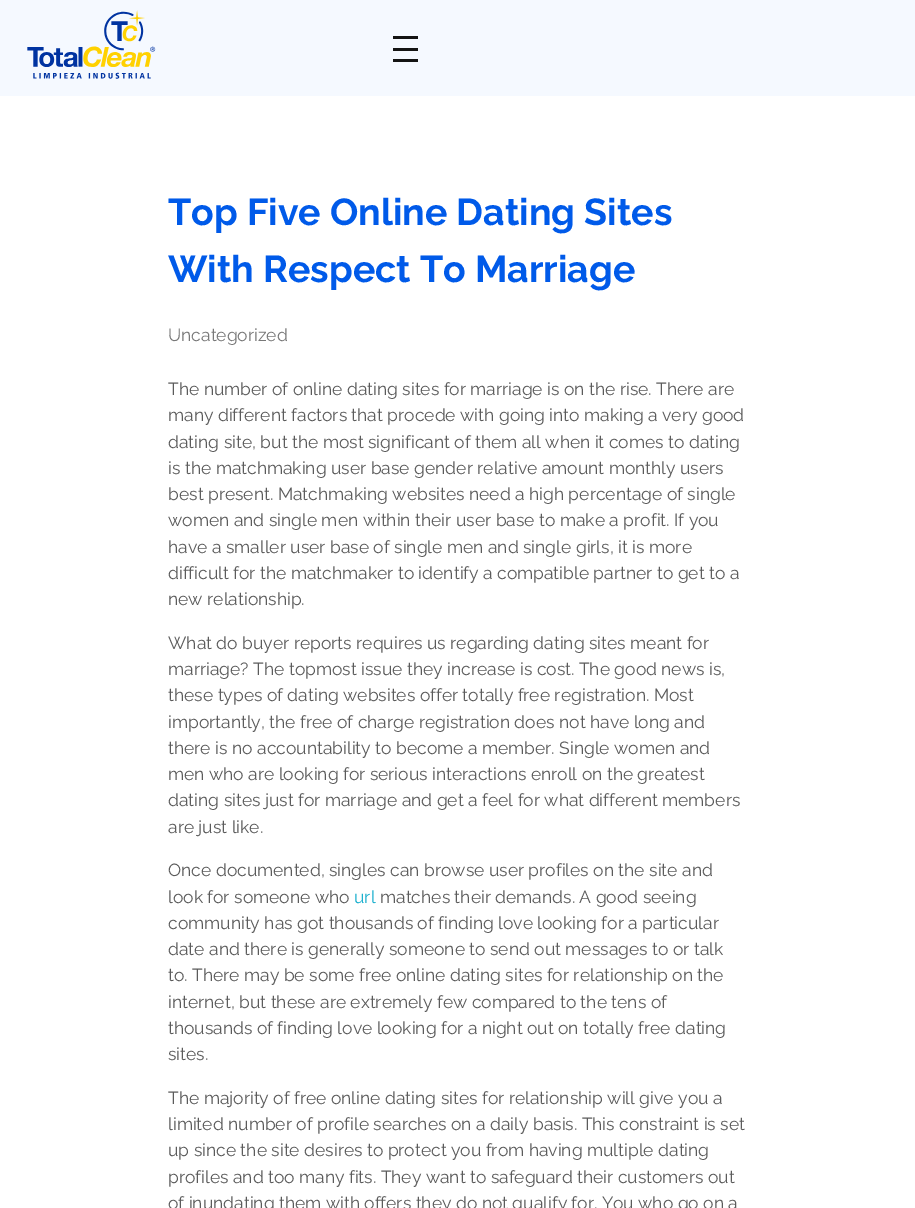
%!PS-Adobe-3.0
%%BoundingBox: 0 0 915 1208
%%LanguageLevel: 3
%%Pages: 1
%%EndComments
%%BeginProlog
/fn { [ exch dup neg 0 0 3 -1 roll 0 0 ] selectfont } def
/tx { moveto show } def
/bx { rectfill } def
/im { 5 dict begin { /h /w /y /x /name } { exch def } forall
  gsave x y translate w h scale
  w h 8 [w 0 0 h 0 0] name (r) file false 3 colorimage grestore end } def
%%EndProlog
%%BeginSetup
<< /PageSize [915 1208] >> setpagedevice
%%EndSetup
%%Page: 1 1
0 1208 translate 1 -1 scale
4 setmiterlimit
1 setgray
0 0 915 1208 bx
0.961 0.976 1 setrgbcolor
0 0 915 96 bx
(image0.raw) 27 10 129 69 im
0.078 setgray
393 36 25 3 bx
393 48 25 3 bx
393 59 25 3 bx
/Raleway-Bold 37.5 fn
0 0.353 0.914 setrgbcolor
(Top Five Online Dating Sites) 168 225 tx
(With Respect To Marriage) 168 282 tx
/Raleway-Regular 17.5 fn
0.471 setgray
(Uncategorized) 168 341 tx
0.357 setgray
(The number of online dating sites for marriage is on the rise. There are) 168 395 tx
(many different factors that procede with going into making a very good) 168 421 tx
(dating site, but the most significant of them all when it comes to dating) 168 448 tx
(is the matchmaking user base gender relative amount monthly users) 168 474 tx
(best present. Matchmaking websites need a high percentage of single) 168 500 tx
(women and single men within their user base to make a profit. If you) 168 526 tx
(have a smaller user base of single men and single girls, it is more) 168 553 tx
(difficult for the matchmaker to identify a compatible partner to get to a) 168 579 tx
(new relationship.) 168 605 tx
(What do buyer reports requires us regarding dating sites meant for) 168 649 tx
(marriage? The topmost issue they increase is cost. The good news is,) 168 675 tx
(these types of dating websites offer totally free registration. Most) 168 701 tx
(importantly, the free of charge registration does not have long and) 168 728 tx
(there is no accountability to become a member. Single women and) 168 754 tx
(men who are looking for serious interactions enroll on the greatest) 168 780 tx
(dating sites just for marriage and get a feel for what different members) 168 806 tx
(are just like.) 168 833 tx
(Once documented, singles can browse user profiles on the site and) 168 876 tx
(look for someone who) 168 903 tx
0.106 0.69 0.808 setrgbcolor
(url) 354 903 tx
0.357 setgray
(matches their demands. A good seeing) 380 903 tx
(community has got thousands of finding love looking for a particular) 168 929 tx
(date and there is generally someone to send out messages to or talk) 168 955 tx
(to. There may be some free online dating sites for relationship on the) 168 981 tx
(internet, but these are extremely few compared to the tens of) 168 1008 tx
(thousands of finding love looking for a night out on totally free dating) 168 1034 tx
(sites.) 168 1060 tx
(The majority of free online dating sites for relationship will give you a) 168 1104 tx
(limited number of profile searches on a daily basis. This constraint is set) 168 1130 tx
(up since the site desires to protect you from having multiple dating) 168 1156 tx
(profiles and too many fits. They want to safeguard their customers out) 168 1183 tx
(of inundating them with offers they do not qualify for. You who go on a) 168 1209 tx
showpage
%%EOF
